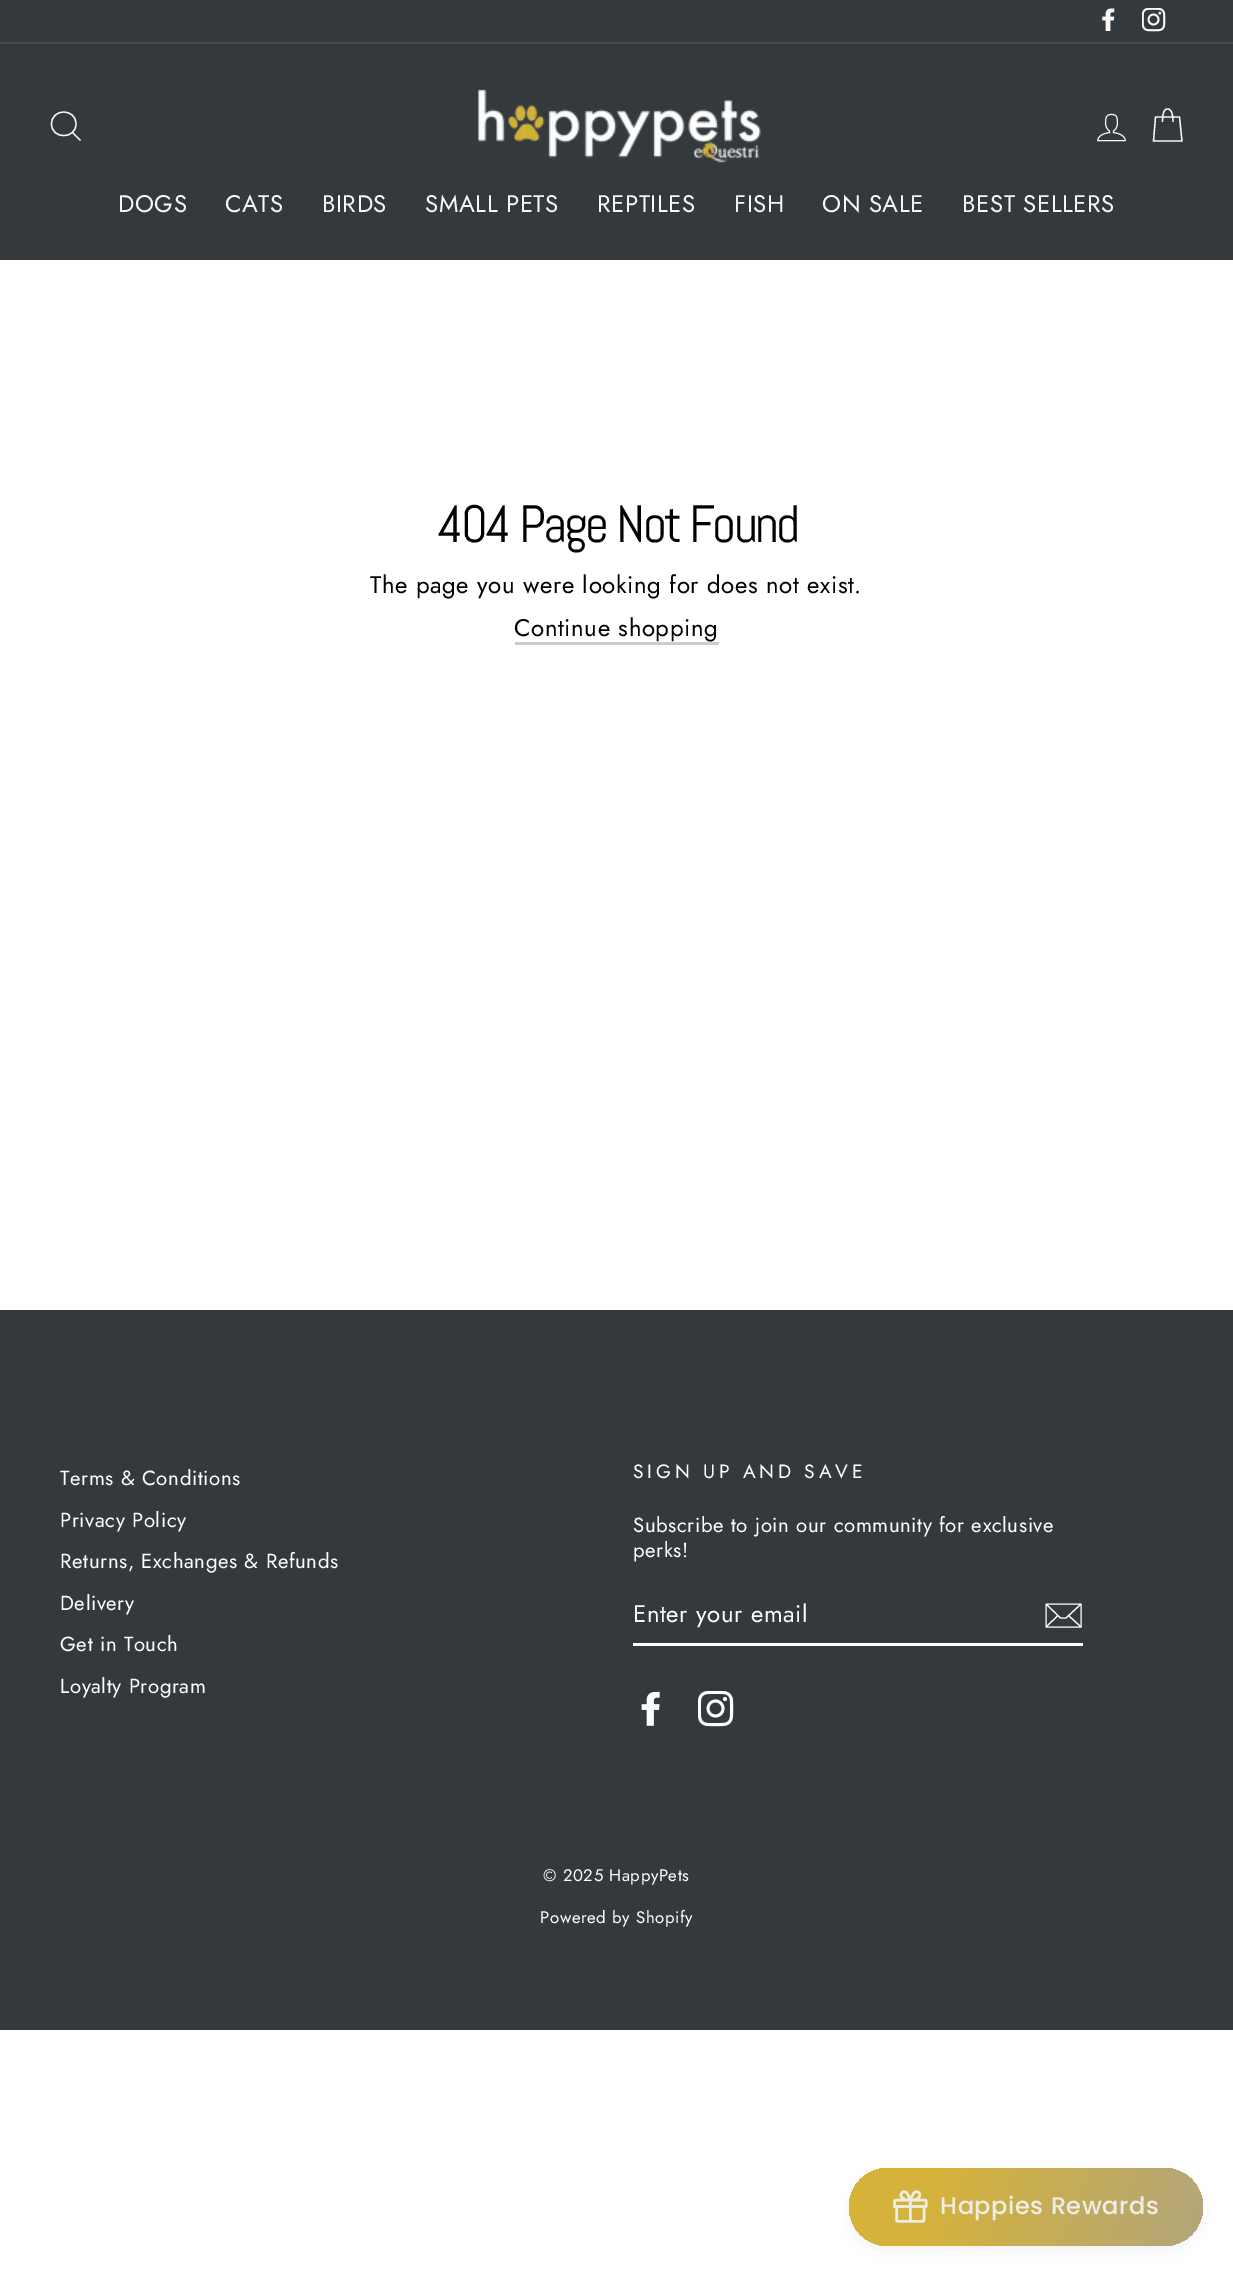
%!PS-Adobe-3.0
%%BoundingBox: 0 0 1233 2275
%%LanguageLevel: 3
%%Pages: 1
%%EndComments
%%BeginProlog
/m { moveto } bind def
/l { lineto } bind def
/c { curveto } bind def
/h { closepath } bind def
/S { stroke } bind def
/q { gsave } bind def
/Q { grestore } bind def
/w { setlinewidth } bind def
/fn { [ exch dup neg 0 0 3 -1 roll 0 0 ] selectfont } def
/bx { rectfill } def
/al { dup .setfillconstantalpha .setstrokeconstantalpha } def
/rr { 5 dict begin { /r /h /w /y /x } { exch def } forall
  x r add y moveto x w add y 2 copy h add r arct x w add y h add x 1 index r arct
  x y h add x y r arct x y 2 copy exch w add exch r arct closepath end } def
/sh { 12 dict begin { /a /b /q /h /w /y /x } { exch def } forall gsave /was 0 def
  9 -2 -9 { dup b mul 4 div /e exch def 1 sub .425 mul 2.718 exch exp 1 add a .99 .min exch div /now exch def
    1 1 now sub 1 was sub div sub al /was now def
    w h .min e 2 mul add 0 gt { x e sub y e sub w e 2 mul add h e 2 mul add
      q e add b .6 mul add w h .min 2 div e add .min 0 .max rr fill } if } for grestore end } def
/im { 5 dict begin { /h /w /y /x /name } { exch def } forall
  gsave x y translate w h scale
  w h 8 [w 0 0 h 0 0] name (r) file false 3 colorimage grestore end } def
%%EndProlog
%%BeginSetup
<< /PageSize [1233 2275] /PageUsesTransparency true >> setpagedevice
%%EndSetup
%%Page: 1 1
0 .pushpdf14devicefilter
0 2275 translate 1 -1 scale
4 setmiterlimit
1 setgray
0 0 1233 2275 bx
0.204 0.224 0.243 setrgbcolor
0 0 1233 42 bx
(image0.raw) 1102 8 13 23 im
(image1.raw) 1142 8 24 24 im
0 44 1233 216 bx
0.282 0.298 0.318 setrgbcolor
0 42 1233 2 bx
0.98 0.969 0.969 setrgbcolor
1.3 w
76 124 m 76 139.5 51.5 139.5 51.5 124 c 51.5 108 76 108 76 124 c h 80.5 140.5 m 72.5 132.5 l S
(image2.raw) 477 89 284 74 im
(image3.raw) 1097 113 29 29 im
1162.5 122 m 1162.5 111.5 1164.5 109 1167.5 109 c 1170.5 109 1173 111.5 1173 122 c 1155.5 117 m 1179.5 117 l 1182 141 l 1153.5 141 l h S
/Jost-Regular 24 fn
118 212 m 0.6 0 (DOGS) ashow
225 212 m 0.6 0 (CATS) ashow
322 212 m 0.6 0 (BIRDS) ashow
425 212 m 0.6 0 (SMALL PETS) ashow
597 212 m 0.6 0 (REPTILES) ashow
734 212 m 0.6 0 (FISH) ashow
822 212 m 0.6 0 (ON SALE) ashow
962 212 m 0.6 0 (BEST SELLERS) ashow
/Abel-Regular 52.5 fn
0 setgray
437 542 m -2.6 0 (404 Page Not Found) ashow
/Jost-Regular 24 fn
370 593 m 0.6 0 (The page you were looking for does not exist.) ashow
0.8 setgray
515 642 204 3 bx
0 setgray
514 636 m 0.6 0 (Continue shopping) ashow
0.204 0.224 0.243 setrgbcolor
0 1310 1233 720 bx
/Jost-Regular 20.4 fn
1 setgray
60 1485 m 0.6 0 (Terms & Conditions) ashow
60 1527 m 0.6 0 (Privacy Policy) ashow
60 1568 m 0.6 0 (Returns, Exchanges & Refunds) ashow
60 1610 m 0.6 0 (Delivery) ashow
60 1651 m 0.6 0 (Get in Touch) ashow
60 1693 m 0.6 0 (Loyalty Program) ashow
/Jost-Regular 19.25 fn
633 1478 m 3.8 0 (SIGN UP AND SAVE) ashow
/Jost-Regular 20.4 fn
633 1532 m 0.6 0 (Subscribe to join our community for exclusive) ashow
633 1557 m 0.6 0 (perks!) ashow
633 1643 450 3 bx
/Jost-Regular 24 fn
633 1622 m 0.6 0 (Enter your email) ashow
1.1 w
1081 1627 m 1046 1627 l 1046 1604 l 1081 1604 l h 1046 1604 m 1060.5 1618 l 1066 1618 l 1081 1604 l 1058 1615.5 m 1046.5 1626.5 l 1080.5 1626.5 m 1068.5 1615.5 l S
(image4.raw) 641 1691 19 35 im
(image5.raw) 698 1691 36 36 im
/Jost-Regular 16.75 fn
543 1881 m 0.6 0 (© 2025 HappyPets) ashow
540 1923 m 0.6 0 (Powered by Shopify) ashow
0.267 setgray
852 2177 348 72 36 6 0.08 sh
q 849 2168 354 78 39 rr clip newpath
<< /ShadingType 2 /ColorSpace /DeviceRGB /Coords [857 2146 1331 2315] /Extend [true true] /Function << /FunctionType 3 /Domain [0 1] /Functions [<< /FunctionType 2 /Domain [0 1] /C0 [0.835 0.698 0.227] /C1 [0.835 0.698 0.227] /N 1 >> << /FunctionType 2 /Domain [0 1] /C0 [0.835 0.698 0.227] /C1 [0.635 0.624 0.624] /N 1 >>] /Bounds [0.17] /Encode [0 1 0 1] >> >> shfill Q
(image6.raw) 893 2190 35 33 im
/Poppins-Medium 24 fn
0.933 0.929 0.91 setrgbcolor
940 2214 m 0.6 0 (Happies Rewards) ashow
.poppdf14devicefilter showpage
%%EOF
